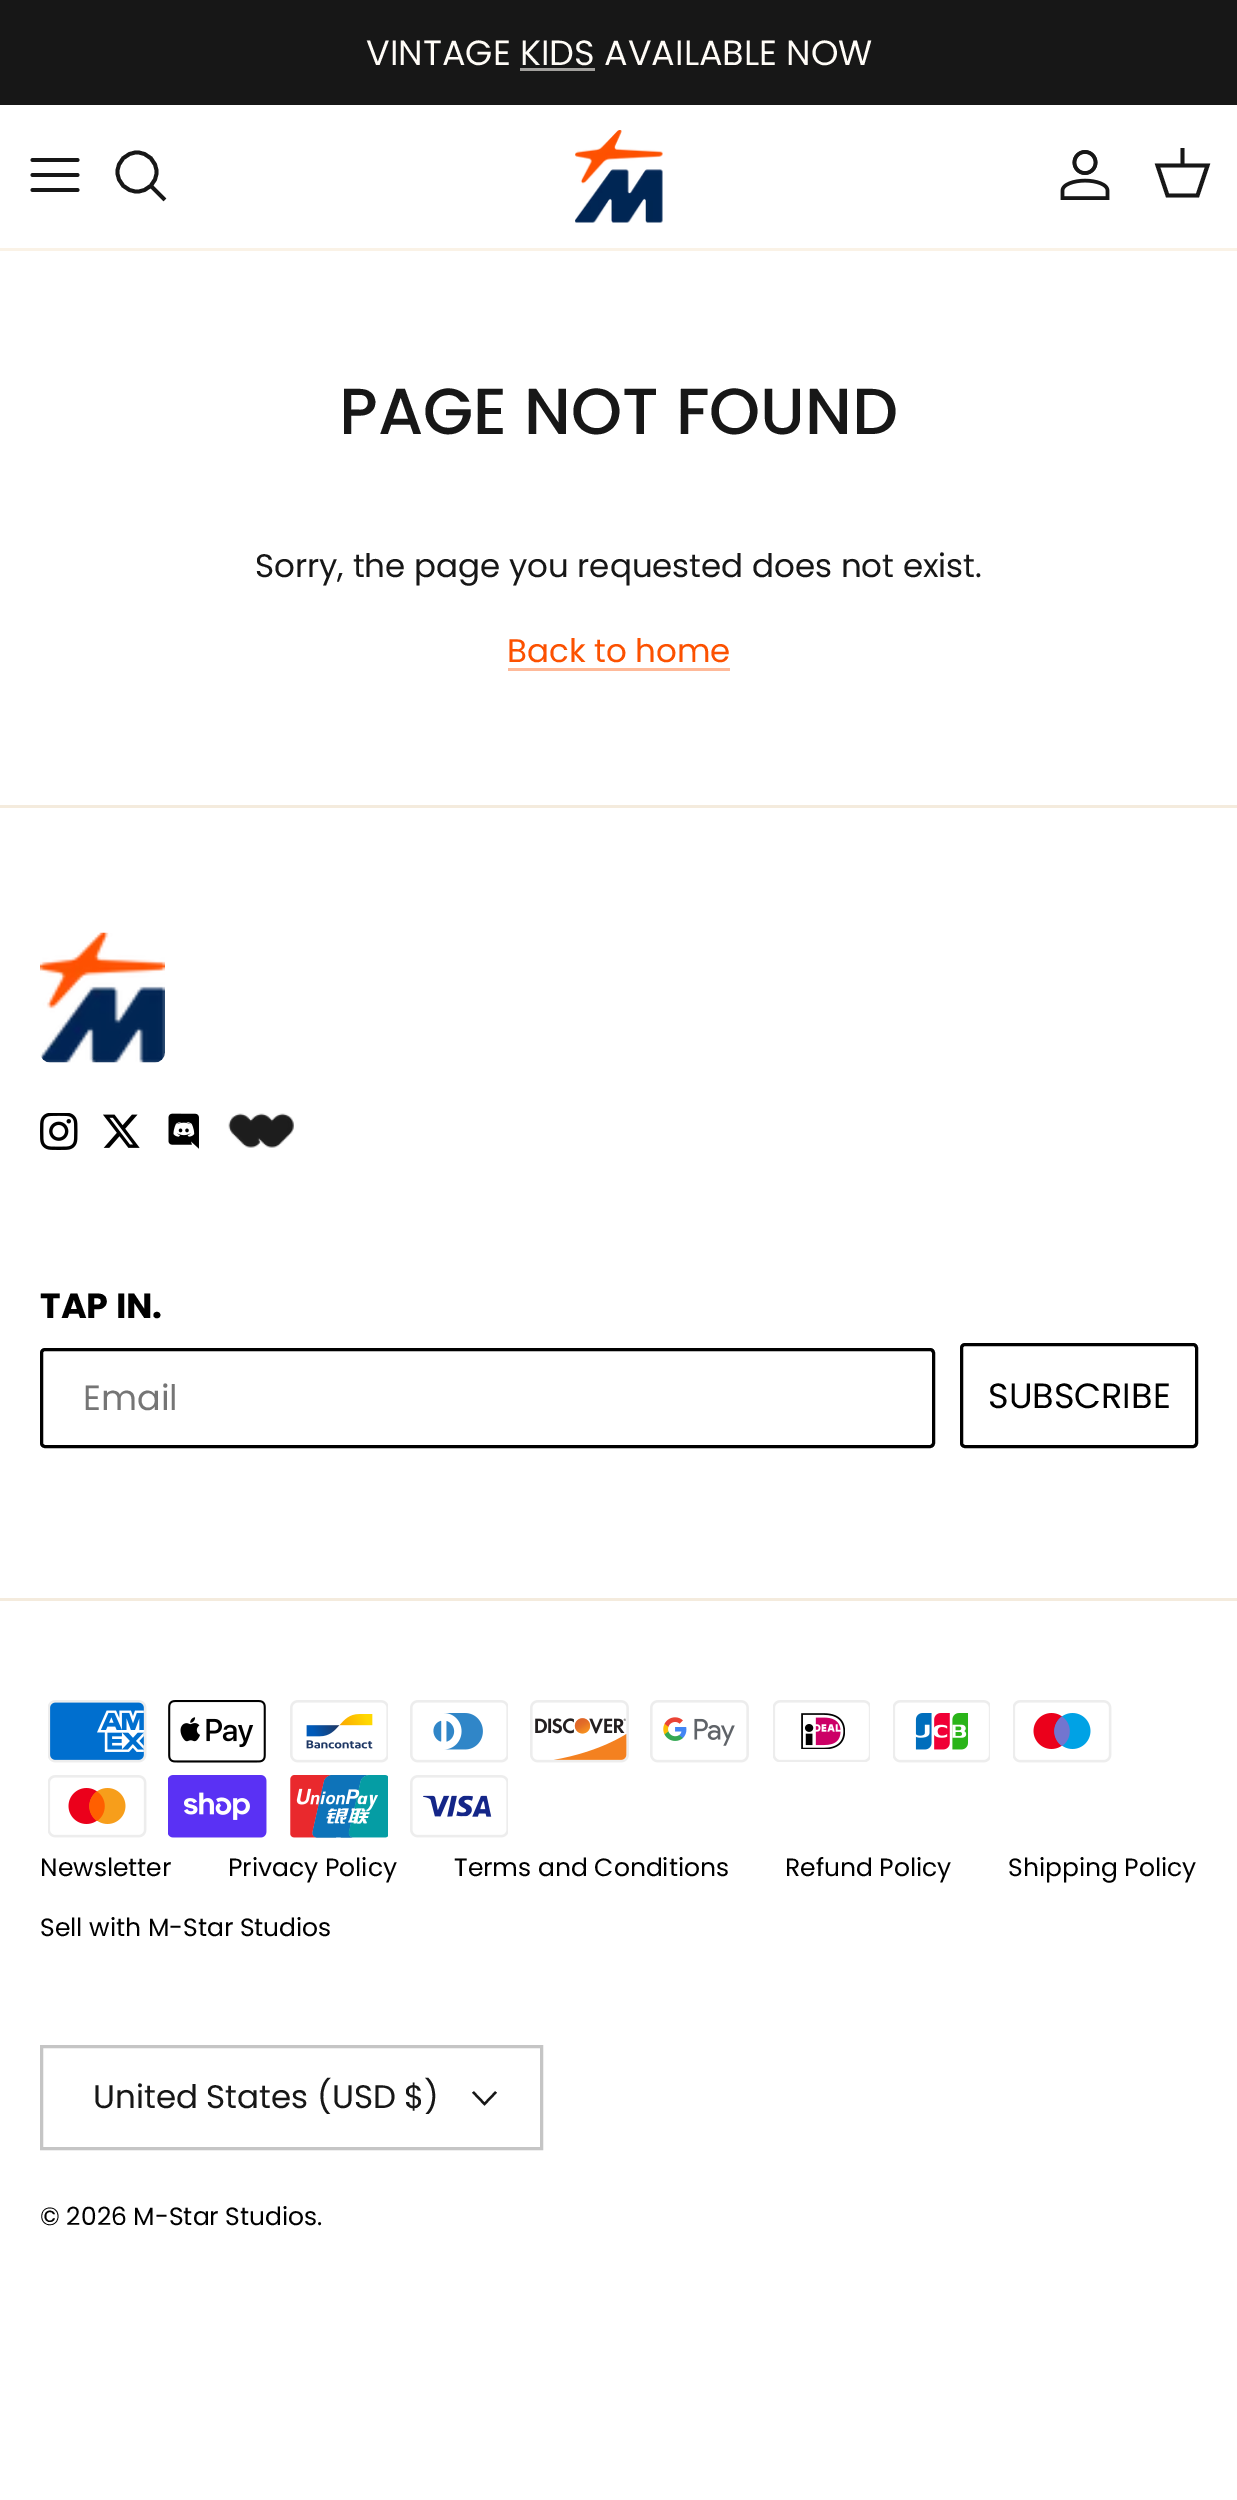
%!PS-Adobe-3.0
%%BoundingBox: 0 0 1237 2500
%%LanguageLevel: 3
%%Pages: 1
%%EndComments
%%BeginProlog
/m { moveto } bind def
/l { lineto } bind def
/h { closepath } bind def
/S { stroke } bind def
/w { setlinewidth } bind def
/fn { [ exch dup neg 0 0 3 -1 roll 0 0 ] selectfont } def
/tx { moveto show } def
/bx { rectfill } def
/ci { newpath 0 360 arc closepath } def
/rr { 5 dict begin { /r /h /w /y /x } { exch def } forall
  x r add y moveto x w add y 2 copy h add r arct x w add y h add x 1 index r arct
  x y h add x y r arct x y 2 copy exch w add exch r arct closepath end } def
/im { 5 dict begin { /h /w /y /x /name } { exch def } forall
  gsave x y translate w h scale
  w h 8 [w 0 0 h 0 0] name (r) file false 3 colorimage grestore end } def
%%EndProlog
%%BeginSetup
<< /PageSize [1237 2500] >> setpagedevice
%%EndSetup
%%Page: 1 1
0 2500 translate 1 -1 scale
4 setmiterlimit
1 setgray
0 0 1237 2500 bx
0.09 setgray
0 0 1237 105 bx
/Poppins-Regular 35 fn
1 0.988 0.969 setrgbcolor
(VINTAGE KIDS AVAILABLE NOW) 366 65 tx
0.635 0.627 0.616 setrgbcolor
520 68 75 3 bx
0.98 0.949 0.902 setrgbcolor
0 248 1237 3 bx
0.09 setgray
3.8 w
1 setlinecap
1 setlinejoin
32.5 175 m 77.5 175 l 32.5 160 m 77.5 160 l 32.5 190 m 77.5 190 l S
0 setlinecap
0 setlinejoin
137 172 19.5 ci S
2 setlinecap
152.5 187.5 m 163.5 198.5 l S
(image0.raw) 575 130 88 93 im
(image1.raw) 1060 150 50 50 im
0 setlinecap
1157.5 165.5 m 1207.5 165.5 l 1197.5 195.5 l 1167.5 195.5 l h S
2 setlinecap
1182.5 165 m 1182.5 150 l S
/Poppins-Medium 65 fn
(PAGE NOT FOUND) 339 434 tx
/Poppins-Regular 32.5 fn
(Sorry, the page you requested does not exist.) 255 577 tx
0.988 0.318 0 setrgbcolor
(Back to home) 507 662 tx
0.996 0.725 0.6 setrgbcolor
508 668 222 3 bx
0.957 0.922 0.867 setrgbcolor
0 805 1237 3 bx
(image2.raw) 40 932 125 131 im
(image3.raw) 40 1113 38 37 im
(image4.raw) 103 1114 37 34 im
(image5.raw) 168 1113 31 36 im
(image6.raw) 228 1113 66 35 im
/Poppins-Bold 35 fn
0 setgray
(TAP IN.) 40 1318 tx
3 w
0 setlinecap
41.5 1349.5 892 97 3.5 rr S
/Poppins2-Regular 35 fn
0.459 setgray
(Email) 83 1410 tx
0 setgray
961.5 1344.5 235 102 3.5 rr S
(SUBSCRIBE) 988 1408 tx
0.957 0.922 0.867 setrgbcolor
0 1598 1237 3 bx
(image7.raw) 48 1700 99 63 im
(image8.raw) 168 1700 98 63 im
(image9.raw) 290 1700 98 63 im
(image10.raw) 410 1700 98 63 im
(image11.raw) 530 1700 99 63 im
(image12.raw) 650 1700 99 63 im
(image13.raw) 773 1700 97 62 im
(image14.raw) 893 1700 97 63 im
(image15.raw) 1013 1700 99 63 im
(image16.raw) 48 1775 99 63 im
(image17.raw) 168 1775 99 63 im
(image18.raw) 290 1775 98 63 im
(image19.raw) 410 1775 98 63 im
/Poppins-Regular 25 fn
0 setgray
(Newsletter) 40 1876 tx
(Privacy Policy) 228 1876 tx
(Terms and Conditions) 454 1876 tx
(Refund Policy) 785 1876 tx
(Shipping Policy) 1008 1876 tx
(Sell with M-Star Studios) 40 1936 tx
0.773 setgray
41.5 2046.5 500 102 rectstroke
/Poppins-Regular 32.5 fn
0.09 setgray
(United States \(USD $\)) 93 2108 tx
2.3 w
496 2092 m 484.5 2104 l 473 2092 l S
/Poppins-Regular 25 fn
0 setgray
(© 2026 M-Star Studios.) 40 2225 tx
showpage
%%EOF
